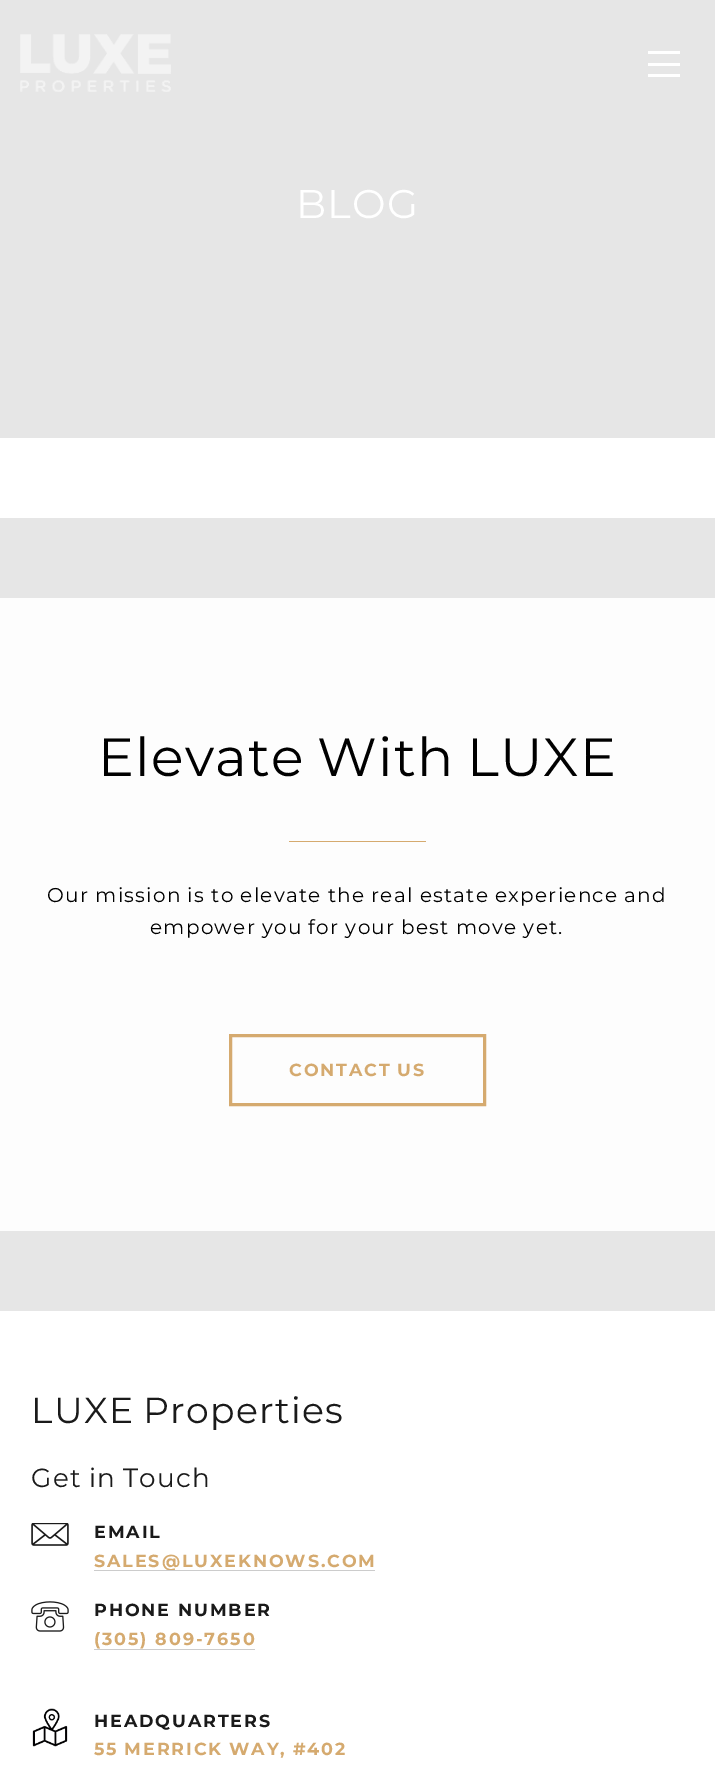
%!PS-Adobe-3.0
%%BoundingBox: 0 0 715 1770
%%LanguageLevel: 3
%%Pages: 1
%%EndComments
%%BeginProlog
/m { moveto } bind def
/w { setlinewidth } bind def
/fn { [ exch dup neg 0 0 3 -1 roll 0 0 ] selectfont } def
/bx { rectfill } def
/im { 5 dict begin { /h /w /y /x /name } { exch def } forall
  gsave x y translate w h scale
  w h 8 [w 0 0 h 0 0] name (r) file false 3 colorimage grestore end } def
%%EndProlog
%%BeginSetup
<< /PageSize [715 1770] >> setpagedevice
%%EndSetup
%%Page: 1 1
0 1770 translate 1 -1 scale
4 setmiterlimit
1 setgray
0 0 715 1770 bx
0.902 setgray
0 0 715 438 bx
(image0.raw) 20 34 151 58 im
1 setgray
648 63 32 3 bx
648 51 32 3 bx
648 74 32 3 bx
/Montserrat-Regular 40 fn
296 218 m 1.25 0 (BLOG) ashow
0.902 setgray
0 518 715 793 bx
0.992 setgray
0 598 715 633 bx
/Montserrat-Regular 53.75 fn
0 setgray
98 776 m -3 0 32 1.25 0 (Elevate With LUXE) awidthshow
0.835 0.667 0.435 setrgbcolor
289 841 137 1 bx
/Montserrat-Regular 20 fn
0 setgray
47 902 m -0.4 0 32 1.25 0 (Our mission is to elevate the real estate experience and) awidthshow
150 934 m -0.5 0 32 1.25 0 (empower you for your best move yet.) awidthshow
0.835 0.667 0.435 setrgbcolor
3 w
230.5 1035.5 254 69 rectstroke
/Montserrat-Bold 17.5 fn
289 1076 m -1 0 32 1.9 0 (CONTACT US) awidthshow
/Montserrat-Regular 36.25 fn
0.102 setgray
31 1423 m -2 0 32 1.25 0 (LUXE Properties) awidthshow
/Montserrat-Regular 26.25 fn
31 1487 m -1 0 32 1.25 0 (Get in Touch) awidthshow
(image1.raw) 31 1523 38 23 im
/Montserrat-Bold 17.5 fn
94 1538 m 1.9 0 (EMAIL) ashow
0.835 0.667 0.435 setrgbcolor
94 1567 m 1.9 0 (SALES@LUXEKNOWS.COM) ashow
0.8 setgray
94 1570 281 1 bx
(image2.raw) 31 1601 38 31 im
0.102 setgray
94 1616 m 1.9 0 (PHONE NUMBER) ashow
0.835 0.667 0.435 setrgbcolor
94 1645 m 1.9 0 (\(305\) 809-7650) ashow
0.8 setgray
94 1649 161 1 bx
(image3.raw) 32 1708 36 39 im
0.102 setgray
94 1727 m 1.9 0 (HEADQUARTERS) ashow
0.835 0.667 0.435 setrgbcolor
94 1755 m -1 0 32 1.9 0 (55 MERRICK WAY, #402) awidthshow
showpage
%%EOF
